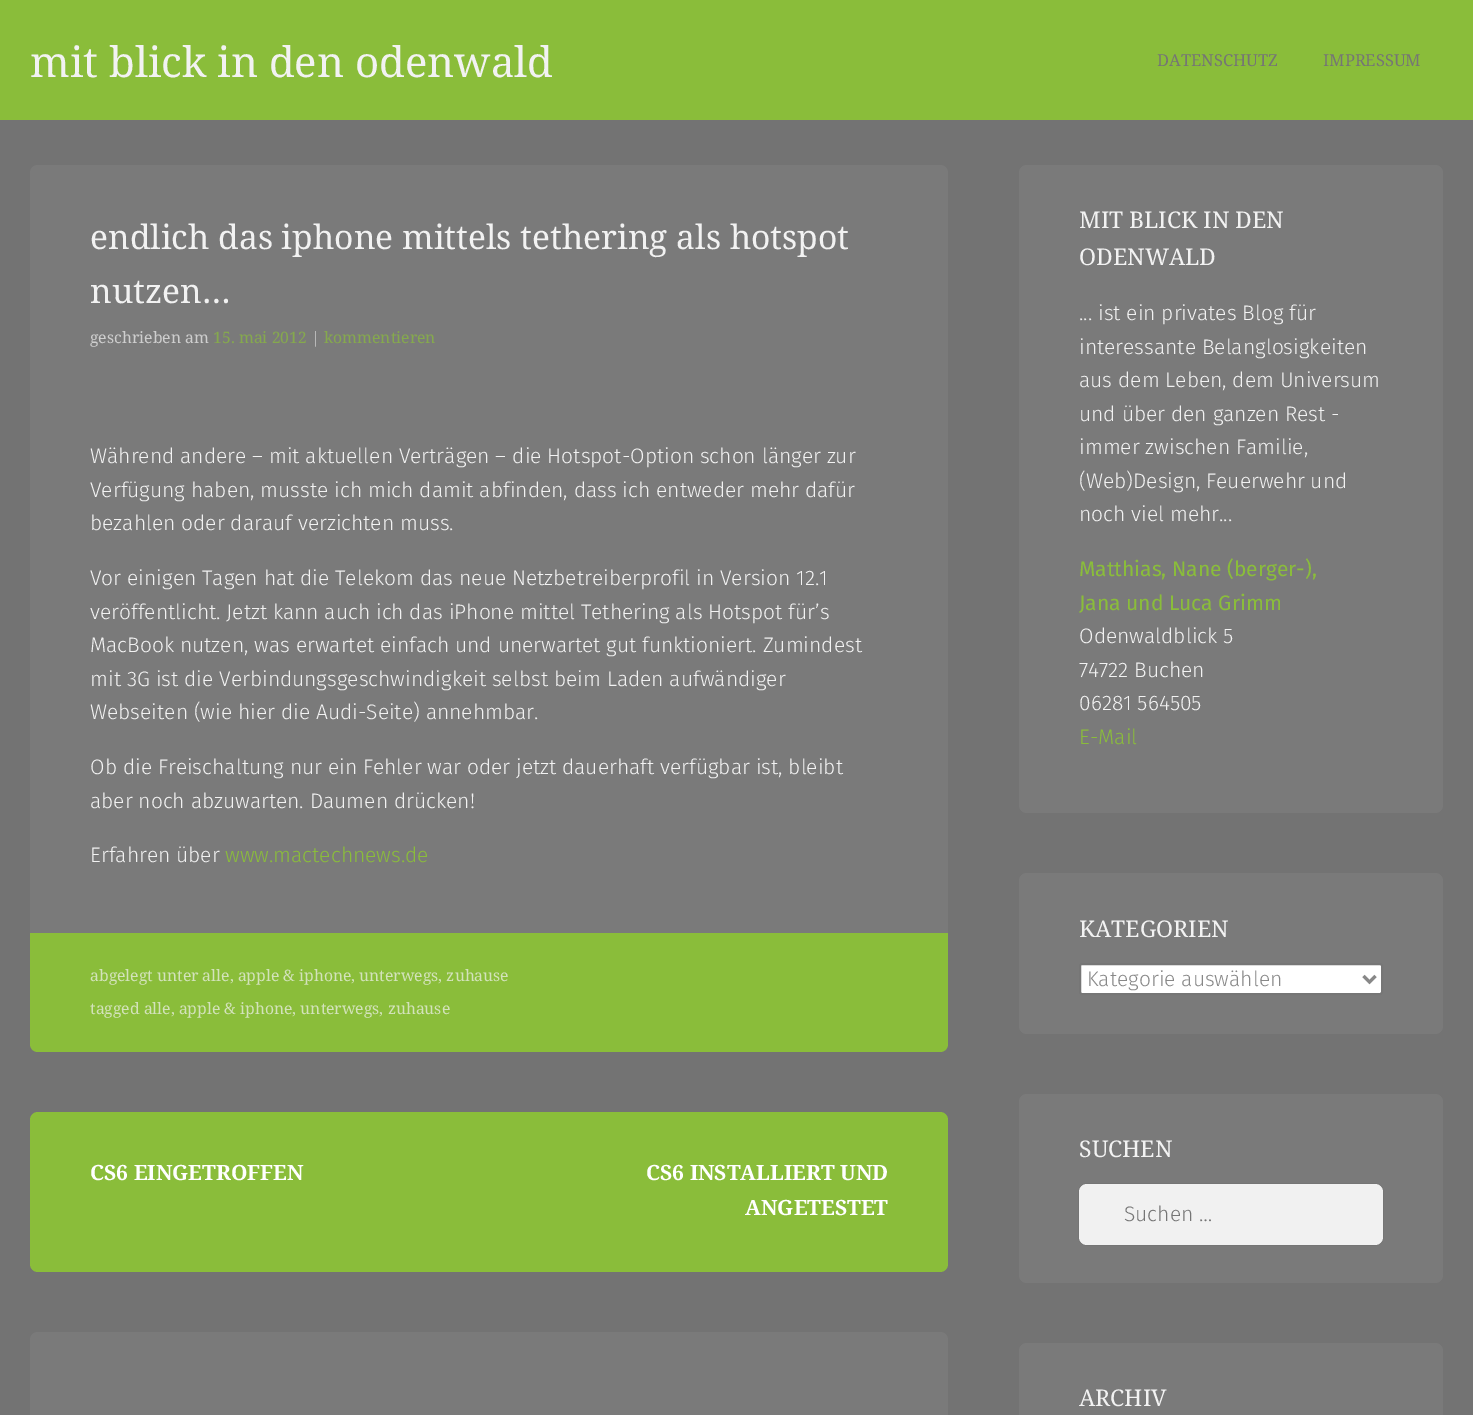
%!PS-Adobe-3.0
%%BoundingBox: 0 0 1473 1415
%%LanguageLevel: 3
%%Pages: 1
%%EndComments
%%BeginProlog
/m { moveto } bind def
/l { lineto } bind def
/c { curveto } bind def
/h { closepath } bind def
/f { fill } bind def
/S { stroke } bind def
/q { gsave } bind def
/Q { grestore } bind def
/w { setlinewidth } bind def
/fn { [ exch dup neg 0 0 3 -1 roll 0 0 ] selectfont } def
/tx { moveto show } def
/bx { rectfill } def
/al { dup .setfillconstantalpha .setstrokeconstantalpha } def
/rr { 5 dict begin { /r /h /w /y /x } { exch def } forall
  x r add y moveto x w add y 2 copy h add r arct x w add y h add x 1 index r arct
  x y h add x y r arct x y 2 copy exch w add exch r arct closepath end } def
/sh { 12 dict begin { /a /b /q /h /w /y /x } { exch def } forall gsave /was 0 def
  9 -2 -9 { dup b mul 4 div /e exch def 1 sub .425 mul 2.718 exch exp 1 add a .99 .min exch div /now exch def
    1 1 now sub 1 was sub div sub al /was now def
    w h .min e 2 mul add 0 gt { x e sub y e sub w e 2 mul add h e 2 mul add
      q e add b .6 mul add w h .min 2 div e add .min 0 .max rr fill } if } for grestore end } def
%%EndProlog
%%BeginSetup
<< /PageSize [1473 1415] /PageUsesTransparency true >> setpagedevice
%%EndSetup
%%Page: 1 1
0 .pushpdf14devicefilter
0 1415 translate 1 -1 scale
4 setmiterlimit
0.451 setgray
0 0 1473 1415 bx
0.541 0.741 0.227 setrgbcolor
0 0 1473 120 bx
/NotoSerif-Regular 42 fn
0.949 setgray
(mit blick in den odenwald) 30 77 tx
/NotoSerif-Regular 16.5 fn
0.459 setgray
(DATENSCHUTZ) 1157 66 tx
(IMPRESSUM) 1323 66 tx
0.478 setgray
38 165 m 940 165 l 944.5 165 948 168.5 948 173 c 948 933 l 30 933 l 30 173 l 30 168.5 33.5 165 38 165 c h f
/NotoSerif-Regular 33.6 fn
0.949 setgray
(endlich das iphone mittels tethering als hotspot) 90 249 tx
(nutzen…) 90 303 tx
/NotoSerif-Regular 15.75 fn
0.808 setgray
(geschrieben am) 90 343 tx
0.522 0.663 0.302 setrgbcolor
(15. mai 2012) 213 343 tx
0.808 setgray
(|) 311 343 tx
0.522 0.663 0.302 setrgbcolor
(kommentieren) 324 343 tx
/FiraSans-Light 21 fn
0.949 setgray
(Während andere – mit aktuellen Verträgen – die Hotspot-Option schon länger zur) 90 463 tx
(Verfügung haben, musste ich mich damit abfinden, dass ich entweder mehr dafür) 90 497 tx
(bezahlen oder darauf verzichten muss.) 90 530 tx
(Vor einigen Tagen hat die Telekom das neue Netzbetreiberprofil in Version 12.1) 90 585 tx
(veröffentlicht. Jetzt kann auch ich das iPhone mittel Tethering als Hotspot für’s) 90 619 tx
(MacBook nutzen, was erwartet einfach und unerwartet gut funktioniert. Zumindest) 90 652 tx
(mit 3G ist die Verbindungsgeschwindigkeit selbst beim Laden aufwändiger) 90 686 tx
(Webseiten \(wie hier die Audi-Seite\) annehmbar.) 90 719 tx
(Ob die Freischaltung nur ein Fehler war oder jetzt dauerhaft verfügbar ist, bleibt) 90 774 tx
(aber noch abzuwarten. Daumen drücken!) 90 808 tx
(Erfahren über) 90 862 tx
0.541 0.741 0.227 setrgbcolor
(www.mactechnews.de) 225 862 tx
30 933 m 948 933 l 948 1044 l 948 1048.5 944.5 1052 940 1052 c 38 1052 l 33.5 1052 30 1048.5 30 1044 c h f
/NotoSerif-Regular 15.75 fn
0.827 0.886 0.733 setrgbcolor
(abgelegt unter alle, apple & iphone, unterwegs, zuhause) 90 981 tx
(tagged alle, apple & iphone, unterwegs, zuhause) 90 1014 tx
0.541 0.741 0.227 setrgbcolor
30 1112 918 160 8 rr f
/NotoSerif-Bold 21 fn
1 setgray
(CS6 EINGETROFFEN) 90 1180 tx
(CS6 INSTALLIERT UND) 646 1180 tx
(ANGETESTET) 745 1215 tx
0.478 setgray
38 1332 m 940 1332 l 944.5 1332 948 1335.5 948 1340 c 948 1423 l 30 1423 l 30 1340 l 30 1335.5 33.5 1332 38 1332 c h f
1019 165 424 648 8 rr f
/NotoSerif-Regular 23 fn
0.949 setgray
(MIT BLICK IN DEN) 1079 228 tx
(ODENWALD) 1079 265 tx
/FiraSans-Light 21 fn
(... ist ein privates Blog für) 1079 320 tx
(interessante Belanglosigkeiten) 1079 354 tx
(aus dem Leben, dem Universum) 1079 387 tx
(und über den ganzen Rest -) 1079 421 tx
(immer zwischen Familie,) 1079 454 tx
(\(Web\)Design, Feuerwehr und) 1079 488 tx
(noch viel mehr...) 1079 521 tx
/FiraSans-Regular 21 fn
0.541 0.741 0.227 setrgbcolor
(Matthias, Nane \(berger-\),) 1079 576 tx
(Jana und Luca Grimm) 1079 610 tx
/FiraSans-Light 21 fn
0.949 setgray
(Odenwaldblick 5) 1079 643 tx
(74722 Buchen) 1079 677 tx
(06281 564505) 1079 710 tx
0.541 0.741 0.227 setrgbcolor
(E-Mail) 1079 744 tx
0.478 setgray
1019 873 424 161 8 rr f
/NotoSerif-Regular 23 fn
0.949 setgray
(KATEGORIEN) 1079 937 tx
1 setgray
1080 964 302 30 2 rr q f Q
0.463 setgray
2 w
S
0.533 setgray
3 w
1363.5 976 m 1369.5 982 l 1375.5 976 l S
/FiraSans-Light 21 fn
(Kategorie auswählen) 1087 986 tx
0.478 setgray
1019 1094 424 189 8 rr f
/NotoSerif-Regular 23 fn
0.949 setgray
(SUCHEN) 1079 1157 tx
0 setgray
1079 1184 304 61 8 1 0.15 sh
0.945 setgray
1079 1184 304 61 8 rr f
/FiraSans-Light 21 fn
0.459 setgray
(Suchen …) 1124 1221 tx
0.478 setgray
1019 1343 424 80 8 rr f
/NotoSerif-Regular 23 fn
0.949 setgray
(ARCHIV) 1079 1406 tx
.poppdf14devicefilter showpage
%%EOF
